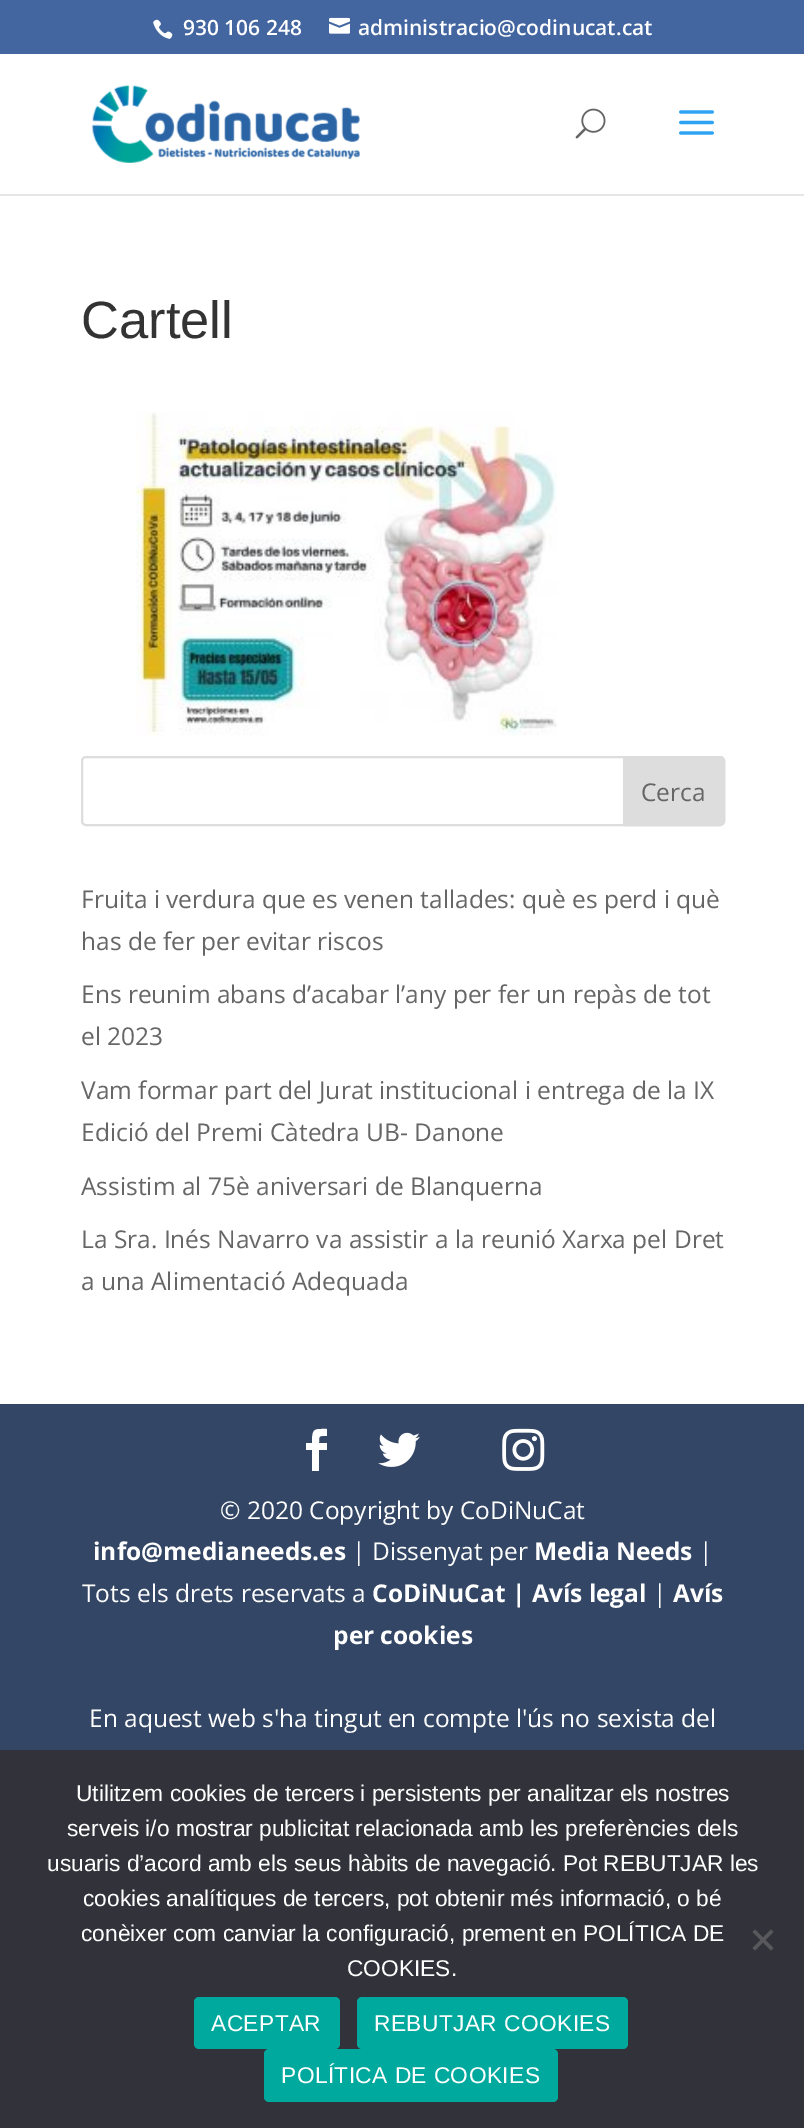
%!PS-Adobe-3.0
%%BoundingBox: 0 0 804 2128
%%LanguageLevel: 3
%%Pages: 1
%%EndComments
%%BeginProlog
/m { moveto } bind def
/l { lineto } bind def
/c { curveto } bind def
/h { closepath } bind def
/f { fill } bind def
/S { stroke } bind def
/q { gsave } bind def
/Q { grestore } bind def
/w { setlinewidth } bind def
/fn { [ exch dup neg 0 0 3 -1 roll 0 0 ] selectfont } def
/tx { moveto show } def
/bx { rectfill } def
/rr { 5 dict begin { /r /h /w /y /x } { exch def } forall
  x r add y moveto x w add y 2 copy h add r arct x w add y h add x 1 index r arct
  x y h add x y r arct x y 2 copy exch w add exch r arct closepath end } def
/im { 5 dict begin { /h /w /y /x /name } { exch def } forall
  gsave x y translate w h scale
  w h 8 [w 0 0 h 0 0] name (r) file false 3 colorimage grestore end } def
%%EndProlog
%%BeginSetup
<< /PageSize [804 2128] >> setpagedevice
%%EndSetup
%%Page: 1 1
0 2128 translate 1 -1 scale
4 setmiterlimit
1 setgray
0 0 804 2128 bx
0.263 0.4 0.631 setrgbcolor
0 0 804 54 bx
(image0.raw) 153 19 20 20 im
/OpenSans-SemiBold 21 fn
1 setgray
(930 106 248) 183 35 tx
(image1.raw) 329 17 21 17 im
(administracio@codinucat.cat) 358 35 tx
0.902 setgray
0 194 804 2 bx
(image2.raw) 91 85 269 78 im
(image3.raw) 575 108 31 31 im
(image4.raw) 679 110 35 25 im
/LiberationSans-Regular 52.5 fn
0.2 setgray
(Cartell) 81 338 tx
(image5.raw) 135 412 422 324 im
0.867 setgray
2 w
82 757 642 68 4 rr S
624 757 m 720 757 l 722 757 724 759 724 761 c 724 821 l 724 823 722 825 720 825 c 624 825 l h q f Q
S
/OpenSans-Regular 24.5 fn
0.4 setgray
(Cerca) 641 801 tx
(Fruita i verdura que es venen tallades: què es perd i què) 81 908 tx
(has de fer per evitar riscos) 81 950 tx
(Ens reunim abans d’acabar l’any per fer un repàs de tot) 81 1003 tx
(el 2023) 81 1045 tx
(Vam formar part del Jurat institucional i entrega de la IX) 81 1099 tx
(Edició del Premi Càtedra UB- Danone) 81 1141 tx
(Assistim al 75è aniversari de Blanquerna) 81 1195 tx
(La Sra. Inés Navarro va assistir a la reunió Xarxa pel Dret) 81 1248 tx
(a una Alimentació Adequada) 81 1290 tx
0.2 0.275 0.396 setrgbcolor
0 1404 804 346 bx
1 setgray
312 1471 m 319 1471 l 319 1450 l 327 1450 l 327 1443 l 319 1443 l 319 1435 319 1436 327 1436 c 327 1429 l 314 1429 312 1428 312 1443 c 306 1443 l 306 1450 l 312 1450 l h f
(image6.raw) 378 1432 42 35 im
(image7.raw) 502 1428 43 43 im
(© 2020 Copyright by CoDiNuCat) 220 1519 tx
/OpenSans-Bold 24.5 fn
(info@medianeeds.es) 93 1560 tx
/OpenSans-Regular 24.5 fn
(| Dissenyat per) 352 1560 tx
/OpenSans-Bold 24.5 fn
(Media Needs) 534 1560 tx
/OpenSans-Regular 24.5 fn
(|) 699 1560 tx
(Tots els drets reservats a) 82 1602 tx
/OpenSans-Bold 24.5 fn
(CoDiNuCat | Avís legal) 372 1602 tx
/OpenSans-Regular 24.5 fn
(|) 653 1602 tx
/OpenSans-Bold 24.5 fn
(Avís) 673 1602 tx
(per cookies) 333 1644 tx
/OpenSans-Regular 24.5 fn
(En aquest web s'ha tingut en compte l'ús no sexista del) 89 1727 tx
0.196 0.196 0.227 setrgbcolor
0 1750 804 378 bx
/LiberationSans-Regular 22.75 fn
1 setgray
(Utilitzem cookies de tercers i persistents per analitzar els nostres) 76 1801 tx
(serveis i/o mostrar publicitat relacionada amb les preferències dels) 67 1836 tx
(usuaris d’acord amb els seus hàbits de navegació. Pot REBUTJAR les) 47 1871 tx
(cookies analítiques de tercers, pot obtenir més informació, o bé) 83 1906 tx
(conèixer com canviar la configuració, prement en POLÍTICA DE) 81 1941 tx
(COOKIES.) 347 1976 tx
0.349 0.349 0.365 setrgbcolor
771 1929.5 m 773.5 1932 l 755 1950.5 l 752.5 1948 l h f
752.5 1932 m 755 1929.5 l 773.5 1948 l 771 1950.5 l h f
0 0.663 0.616 setrgbcolor
194 1997 146 52 5 rr f
1 setgray
211 2031 m 0.4 0 (ACEPTAR) ashow
0 0.663 0.616 setrgbcolor
357 1997 271 52 5 rr f
1 setgray
374 2031 m 0.4 0 (REBUTJAR COOKIES) ashow
0 0.663 0.616 setrgbcolor
264 2049 294 53 5 rr f
1 setgray
281 2083 m 0.4 0 (POLÍTICA DE COOKIES) ashow
showpage
%%EOF
